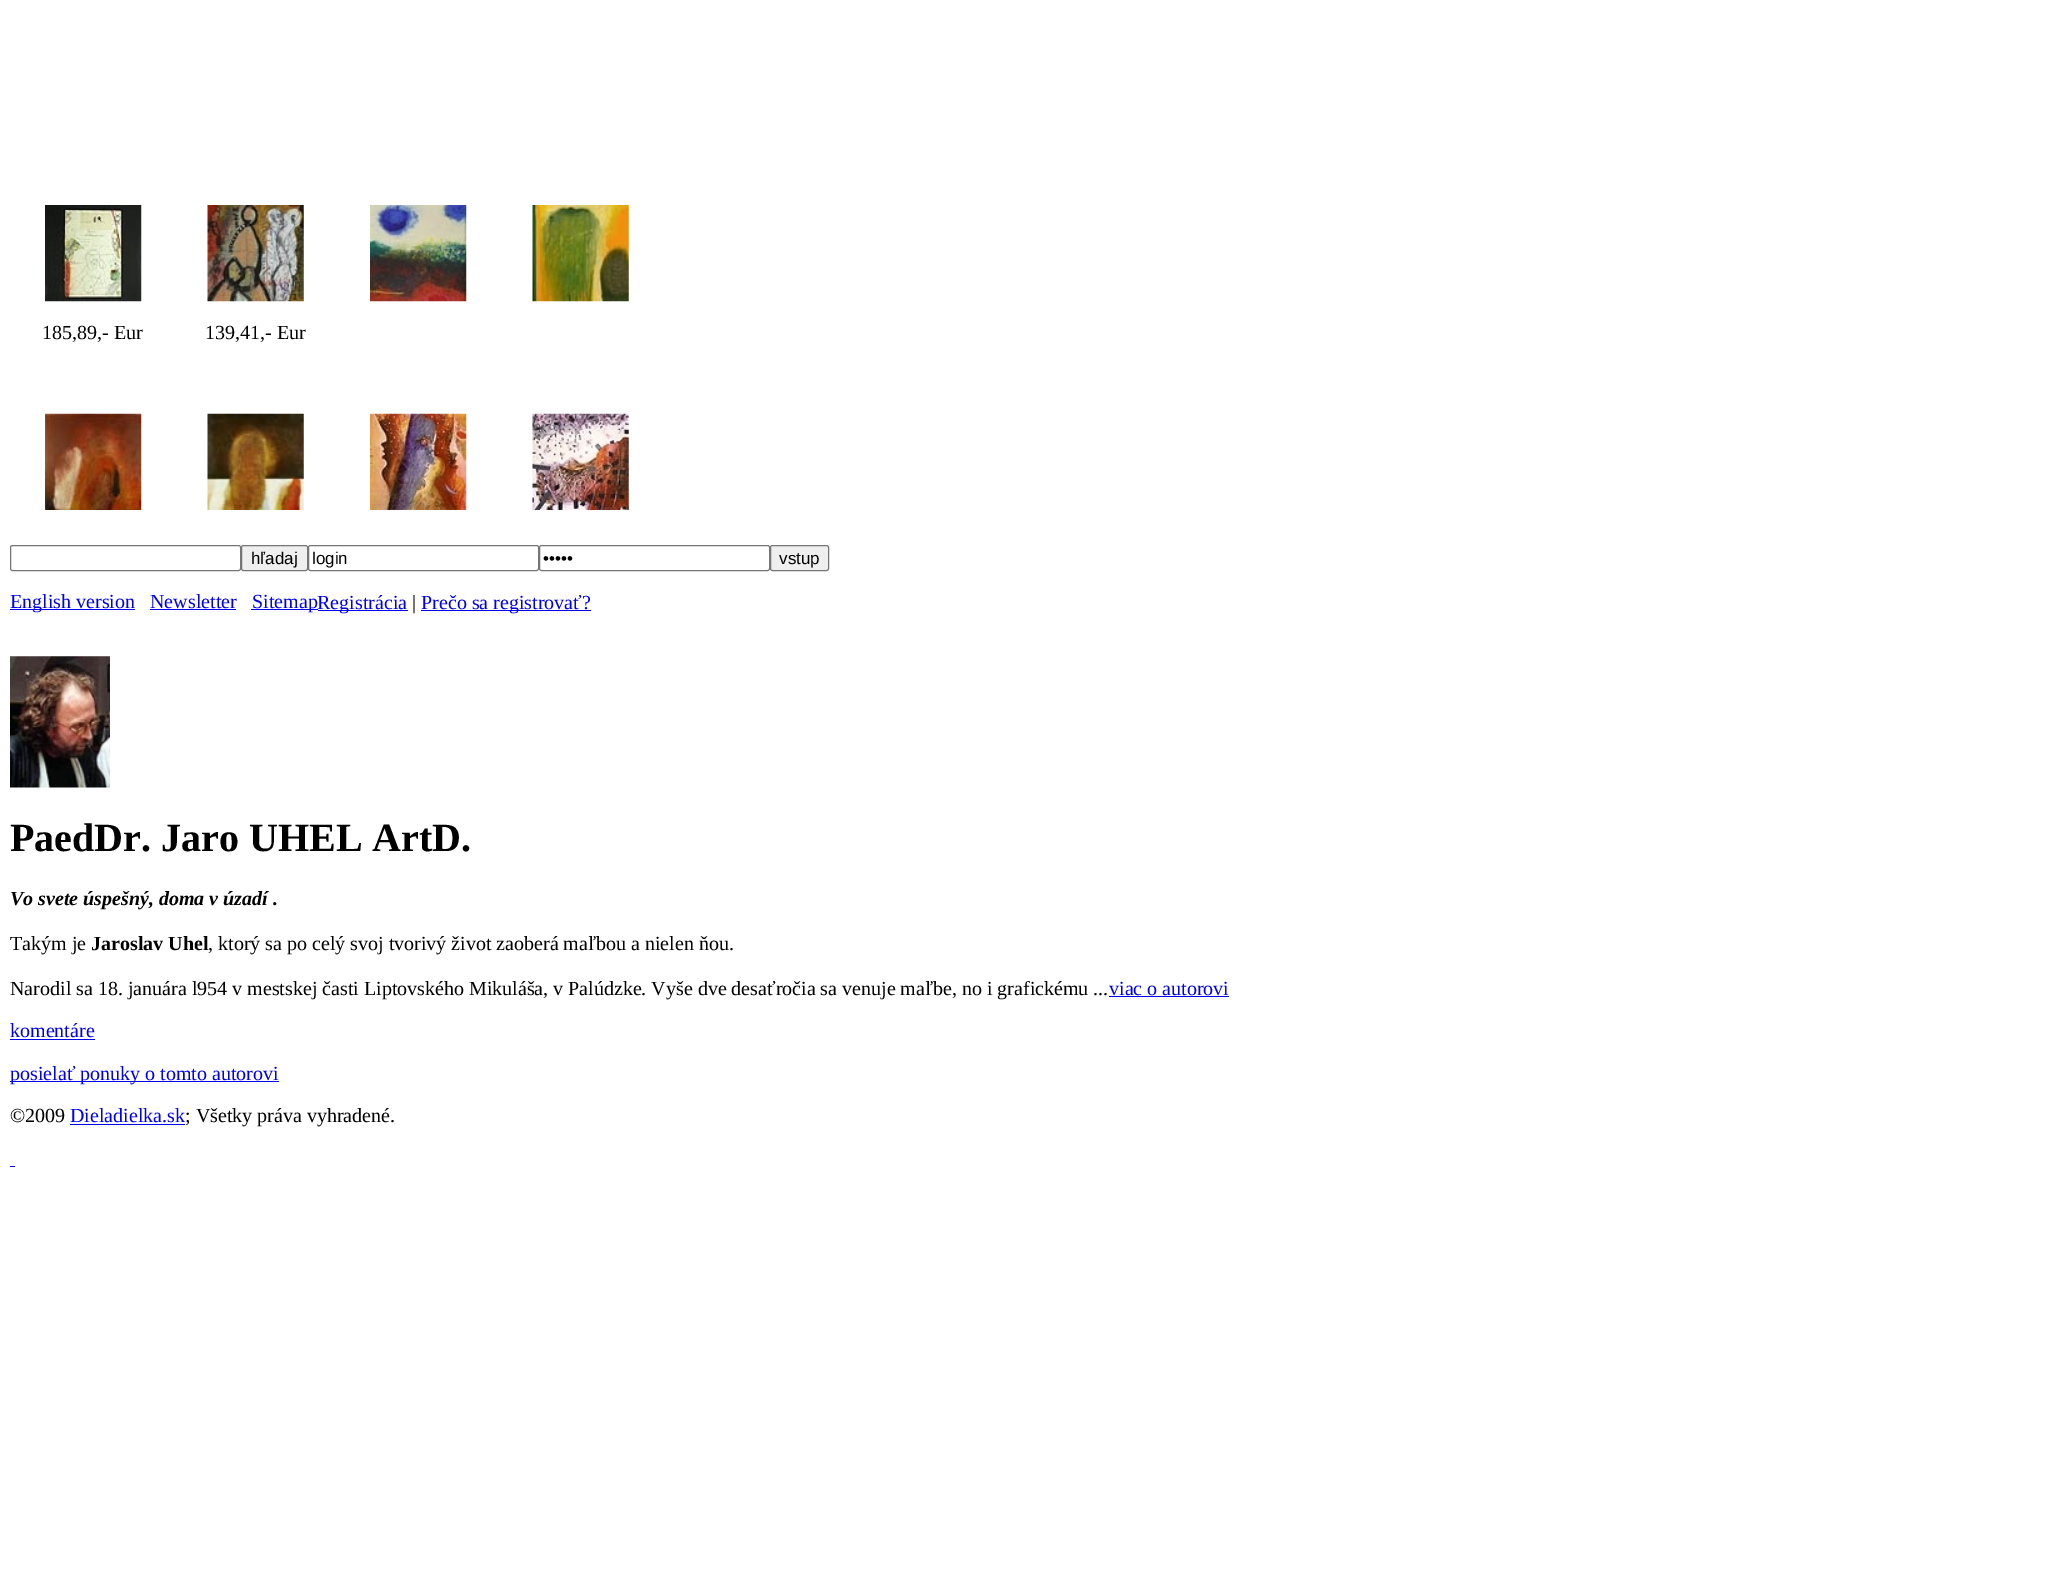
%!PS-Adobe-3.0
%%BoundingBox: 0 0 2056 1593
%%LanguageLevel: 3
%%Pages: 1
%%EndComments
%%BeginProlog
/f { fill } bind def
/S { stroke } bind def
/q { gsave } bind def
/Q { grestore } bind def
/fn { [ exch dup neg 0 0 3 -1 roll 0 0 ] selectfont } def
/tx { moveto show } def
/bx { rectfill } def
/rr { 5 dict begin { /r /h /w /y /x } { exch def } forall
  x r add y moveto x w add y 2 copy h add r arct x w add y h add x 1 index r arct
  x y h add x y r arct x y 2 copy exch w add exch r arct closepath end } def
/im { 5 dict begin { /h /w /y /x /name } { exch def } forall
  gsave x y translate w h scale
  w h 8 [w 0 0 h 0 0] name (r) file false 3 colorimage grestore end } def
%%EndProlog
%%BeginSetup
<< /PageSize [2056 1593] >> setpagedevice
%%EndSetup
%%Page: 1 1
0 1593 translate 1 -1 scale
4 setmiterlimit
1 setgray
0 0 2056 1593 bx
(image0.raw) 370 205 97 97 im
(image1.raw) 532 205 97 97 im
(image2.raw) 45 205 97 97 im
/LiberationSerif-Regular 20 fn
0 setgray
(185,89,- Eur) 42 339 tx
(image3.raw) 207 205 97 97 im
(139,41,- Eur) 205 339 tx
(image4.raw) 45 413 97 97 im
(image5.raw) 207 413 97 97 im
(image6.raw) 370 413 97 97 im
(image7.raw) 532 413 97 97 im
0.463 setgray
10.5 545.5 230 25 2 rr S
0.937 setgray
241.5 545.5 66 25 2 rr q f Q
0.463 setgray
S
/LiberationSans-Regular 17 fn
0 setgray
(hľadaj) 251 564 tx
0.463 setgray
308.5 545.5 230 25 2 rr S
0 setgray
(login) 312 564 tx
0.463 setgray
539.5 545.5 230 25 2 rr S
0 setgray
(•••••) 543 564 tx
0.937 setgray
770.5 545.5 58 25 2 rr q f Q
0.463 setgray
S
0 setgray
(vstup) 779 564 tx
0 0 0.933 setrgbcolor
10 609 125 1 bx
/LiberationSerif-Regular 20 fn
(English version) 10 608 tx
(Newsletter) 150 608 tx
150 609 86 1 bx
251 609 67 1 bx
(Sitemap) 252 608 tx
318 610 90 1 bx
(Registrácia) 317 609 tx
0 setgray
(|) 412 609 tx
0 0 0.933 setrgbcolor
421 610 170 1 bx
(Prečo sa registrovať?) 421 609 tx
(image8.raw) 10 656 100 132 im
/LiberationSerif-Bold 40 fn
0 setgray
(PaedDr. Jaro UHEL ArtD.) 10 851 tx
/LiberationSerif-BoldItalic 20 fn
(Vo svete úspešný, doma v úzadí .) 10 905 tx
/LiberationSerif-Regular 20 fn
(Takým je) 10 950 tx
/LiberationSerif-Bold 20 fn
(Jaroslav Uhel) 91 950 tx
/LiberationSerif-Regular 20 fn
(, ktorý sa po celý svoj tvorivý život zaoberá maľbou a nielen ňou.) 208 950 tx
(Narodil sa 18. januára l954 v mestskej časti Liptovského Mikuláša, v Palúdzke. Vyše dve desaťročia sa venuje maľbe, no i grafickému ...) 10 995 tx
0 0 0.933 setrgbcolor
(viac o autorovi) 1109 995 tx
1109 996 120 1 bx
(komentáre) 10 1037 tx
10 1039 85 1 bx
10 1081 269 1 bx
(posielať ponuky o tomto autorovi) 10 1080 tx
0 setgray
(©2009) 10 1122 tx
0 0 0.933 setrgbcolor
(Dieladielka.sk) 70 1122 tx
70 1124 115 1 bx
0 setgray
(; Všetky práva vyhradené.) 185 1122 tx
0 0 0.933 setrgbcolor
10 1166 5 1 bx
showpage
%%EOF
